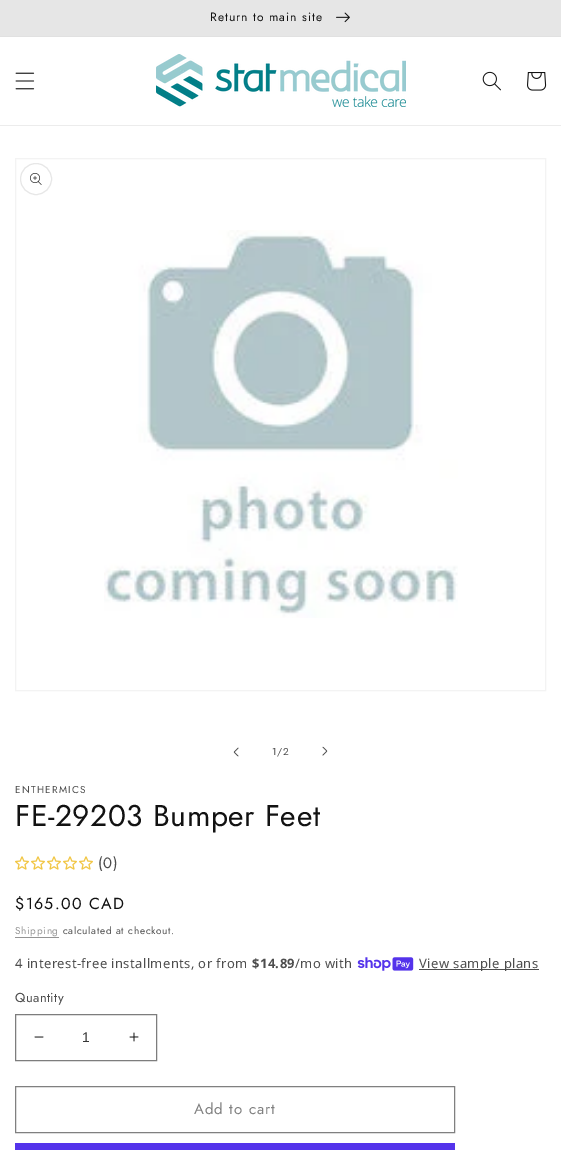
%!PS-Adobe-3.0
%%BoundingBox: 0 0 561 1150
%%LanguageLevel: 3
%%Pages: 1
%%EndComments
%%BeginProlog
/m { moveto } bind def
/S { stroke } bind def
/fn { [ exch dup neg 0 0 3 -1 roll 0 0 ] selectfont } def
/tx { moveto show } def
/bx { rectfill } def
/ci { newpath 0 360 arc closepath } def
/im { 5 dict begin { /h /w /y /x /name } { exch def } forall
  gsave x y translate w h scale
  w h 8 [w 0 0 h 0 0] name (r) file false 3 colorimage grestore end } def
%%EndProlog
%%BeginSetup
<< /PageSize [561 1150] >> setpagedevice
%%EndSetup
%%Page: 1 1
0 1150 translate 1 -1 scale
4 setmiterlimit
1 setgray
0 0 561 1150 bx
0.882 setgray
0 36 561 1 bx
0.902 setgray
0 0 561 36 bx
/Jost-Regular 12 fn
0.071 setgray
210 21 m 1 0 (Return to main site) ashow
(image0.raw) 336 12 14 11 im
0.925 setgray
0 125 561 1 bx
(image1.raw) 15 72 20 18 im
(image2.raw) 156 54 250 53 im
(image3.raw) 482 71 19 20 im
(image4.raw) 527 72 20 19 im
0.953 setgray
15.5 158.5 530 532 rectstroke
(image5.raw) 104 230 354 388 im
0.906 setgray
36 179 15.5 ci S
(image6.raw) 30 173 12 12 im
(image7.raw) 233 747 6 10 im
/Jost-Regular 10 fn
0.302 setgray
272 755 m 0.7 0 (1/2) ashow
(image8.raw) 322 746 6 10 im
15 793 m 1.25 0 (ENTHERMICS) ashow
/Jost-Regular 30 fn
0.071 setgray
15 826 m 0.6 0 (FE-29203 Bumper Feet) ashow
(image9.raw) 15 856 14 14 im
(image9.raw) 31 856 14 14 im
(image9.raw) 47 856 14 14 im
(image9.raw) 63 856 14 14 im
(image9.raw) 79 856 14 14 im
/Jost-Regular 15 fn
0.302 setgray
98 868 m 0.6 0 (\(0\)) ashow
/Jost-Regular 16 fn
0.071 setgray
15 909 m 1.25 0 ($165.00 CAD) ashow
/Jost-Regular 10 fn
0.576 setgray
15 934 m 0.7 0 (Shipping) ashow
15 937 44 1 bx
0.302 setgray
63 934 m 0.7 0 (calculated at checkout.) ashow
/NotoSans-Regular 13 fn
15 968 m 0.4 0 (4 interest-free installments, or from) ashow
/NotoSans-Bold 13 fn
252 968 m 0.4 0 ($14.89) ashow
/NotoSans-Regular 13 fn
295 968 m 0.4 0 (/mo with) ashow
(image10.raw) 357 957 57 14 im
419 969 120 1 bx
419 968 m 0.4 0 (View sample plans) ashow
/Jost-Regular 13 fn
15 1002 m 0.4 0 (Quantity) ashow
(image11.raw) 34 1036 10 2 im
(image12.raw) 129 1032 10 10 im
0.49 setgray
15.5 1014.5 141 46 rectstroke
/LiberationSans-Regular 14 fn
0.212 setgray
(1) 82 1042 tx
0.502 setgray
15.5 1086.5 439 46 rectstroke
/Jost-Regular 15 fn
194 1114 m 1 0 (Add to cart) ashow
0.329 0.2 0.922 setrgbcolor
15 1143 440 7 bx
showpage
%%EOF
